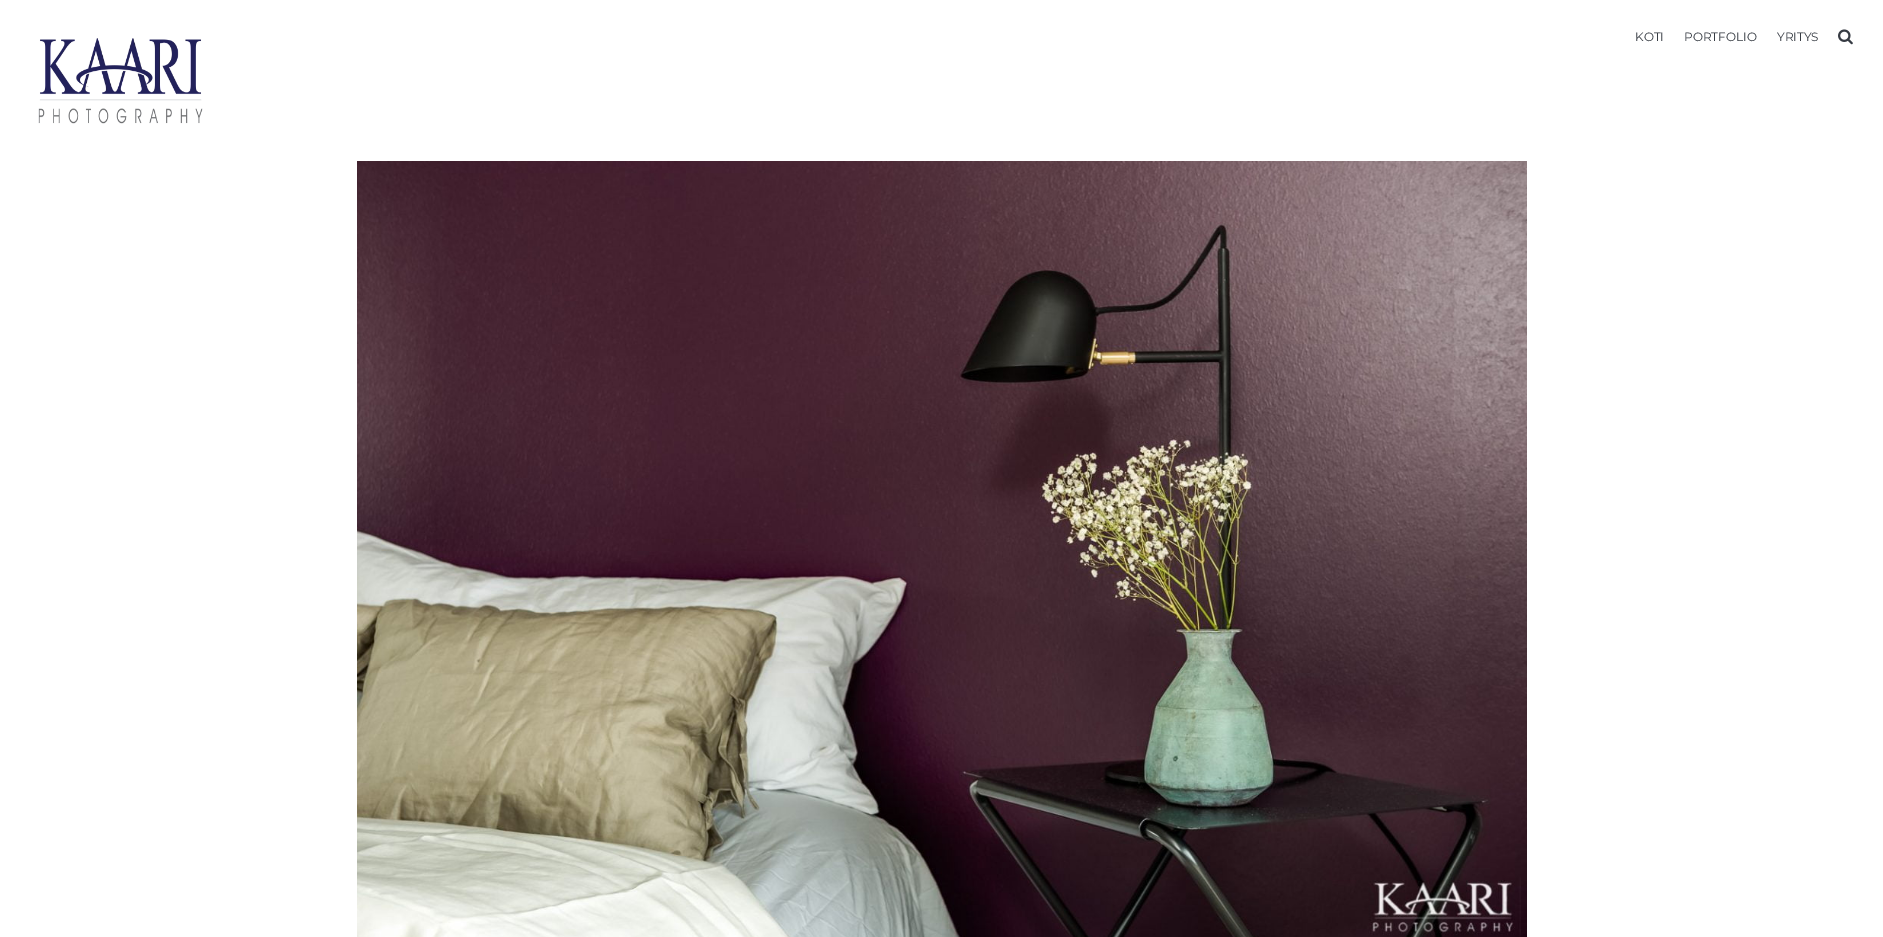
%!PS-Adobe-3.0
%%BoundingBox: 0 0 1883 937
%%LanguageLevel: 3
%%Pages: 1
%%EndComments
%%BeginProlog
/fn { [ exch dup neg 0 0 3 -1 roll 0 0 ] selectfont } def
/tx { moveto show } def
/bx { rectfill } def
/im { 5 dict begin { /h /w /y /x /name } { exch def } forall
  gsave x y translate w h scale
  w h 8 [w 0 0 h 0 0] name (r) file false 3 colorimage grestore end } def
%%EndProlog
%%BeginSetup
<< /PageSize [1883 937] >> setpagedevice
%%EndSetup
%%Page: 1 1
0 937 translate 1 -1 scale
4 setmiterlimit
1 setgray
0 0 1883 937 bx
/Montserrat-Thin 12 fn
0.212 0.231 0.263 setrgbcolor
(KOTI) 1635 41 tx
(PORTFOLIO) 1684 41 tx
(YRITYS) 1777 41 tx
(image0.raw) 1838 29 15 16 im
(image1.raw) 38 38 165 86 im
(image2.raw) 357 161 1170 776 im
showpage
%%EOF
